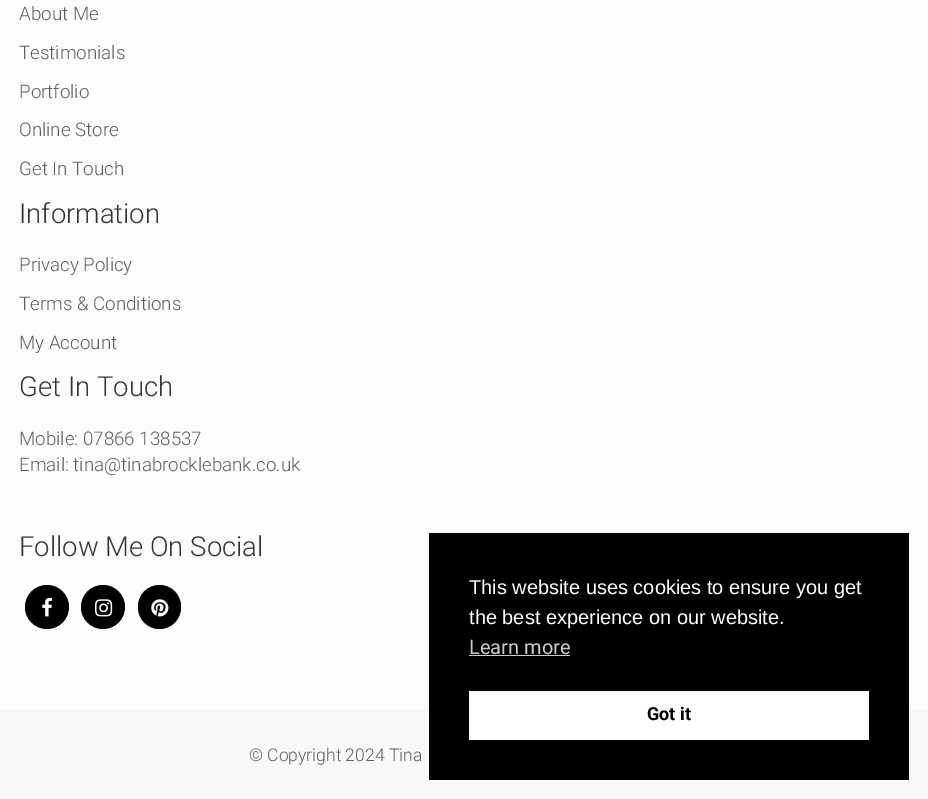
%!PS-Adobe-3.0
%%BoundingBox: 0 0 928 799
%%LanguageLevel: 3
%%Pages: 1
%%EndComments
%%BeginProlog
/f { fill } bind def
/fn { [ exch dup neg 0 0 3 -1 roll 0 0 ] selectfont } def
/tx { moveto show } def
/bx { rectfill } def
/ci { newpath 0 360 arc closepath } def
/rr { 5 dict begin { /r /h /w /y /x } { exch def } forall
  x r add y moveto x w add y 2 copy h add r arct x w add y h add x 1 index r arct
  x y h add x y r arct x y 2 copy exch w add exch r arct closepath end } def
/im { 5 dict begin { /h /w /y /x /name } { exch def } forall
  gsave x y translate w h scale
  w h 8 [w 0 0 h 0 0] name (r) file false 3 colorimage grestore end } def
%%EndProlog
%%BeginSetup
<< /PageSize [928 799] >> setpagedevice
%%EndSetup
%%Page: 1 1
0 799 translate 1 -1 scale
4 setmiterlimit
0.988 0.988 0.992 setrgbcolor
0 0 928 799 bx
/Roboto-Light 18.75 fn
0.376 setgray
(About Me) 19 20 tx
(Testimonials) 19 59 tx
(Portfolio) 19 98 tx
(Online Store) 19 136 tx
(Get In Touch) 19 175 tx
/Roboto-Light 27.5 fn
0.204 0.204 0.235 setrgbcolor
(Information) 19 223 tx
/Roboto-Light 18.75 fn
0.376 setgray
(Privacy Policy) 19 271 tx
(Terms & Conditions) 19 310 tx
(My Account) 19 349 tx
/Roboto-Light 27.5 fn
0.204 0.204 0.235 setrgbcolor
(Get In Touch) 19 396 tx
/Roboto-Light 18.75 fn
0.376 setgray
(Mobile: 07866 138537) 19 445 tx
(Email: tina@tinabrocklebank.co.uk) 19 471 tx
/Roboto-Light 27.5 fn
0.204 0.204 0.235 setrgbcolor
(Follow Me On Social) 19 556 tx
0 setgray
47 607 22 ci f
(image0.raw) 42 597 10 20 im
103 607 22 ci f
(image1.raw) 95 599 18 18 im
138 585 43 44 21.5 rr f
(image2.raw) 151 599 18 18 im
0.969 0.973 0.98 setrgbcolor
0 710 928 89 bx
/Roboto-Light 17.5 fn
0.376 setgray
(© Copyright 2024 Tina) 249 761 tx
0 setgray
429 533 480 247 bx
/LiberationSans-Regular 20 fn
1 setgray
(This website uses cookies to ensure you get) 469 594 tx
(the best experience on our website.) 469 624 tx
/Roboto-Regular 20 fn
0.8 setgray
(Learn more) 469 654 tx
469 655 101 1 bx
1 setgray
469 691 400 49 bx
/Roboto-Bold 18 fn
0 setgray
(Got it) 647 720 tx
showpage
%%EOF
